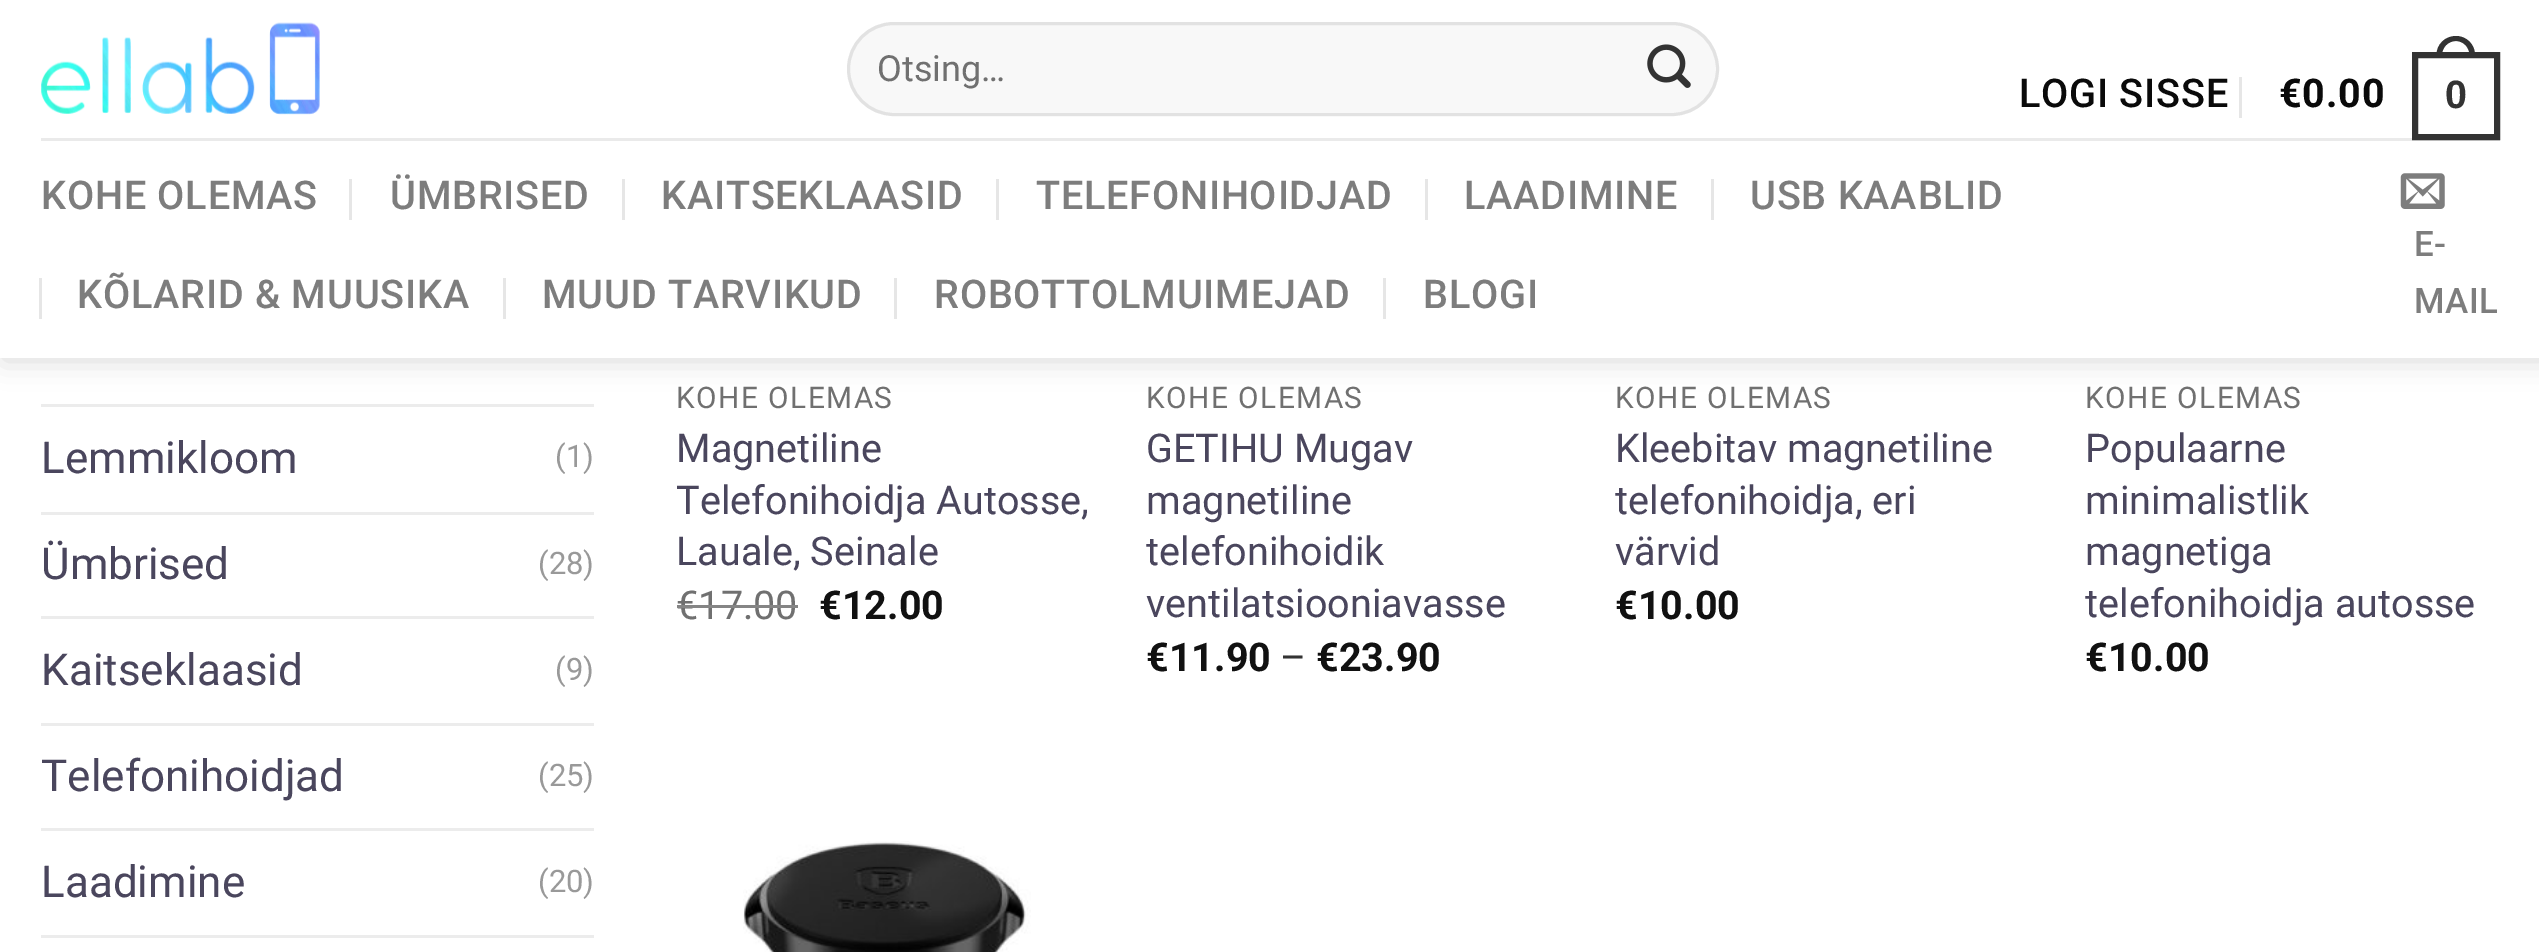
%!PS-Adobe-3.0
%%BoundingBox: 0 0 2539 952
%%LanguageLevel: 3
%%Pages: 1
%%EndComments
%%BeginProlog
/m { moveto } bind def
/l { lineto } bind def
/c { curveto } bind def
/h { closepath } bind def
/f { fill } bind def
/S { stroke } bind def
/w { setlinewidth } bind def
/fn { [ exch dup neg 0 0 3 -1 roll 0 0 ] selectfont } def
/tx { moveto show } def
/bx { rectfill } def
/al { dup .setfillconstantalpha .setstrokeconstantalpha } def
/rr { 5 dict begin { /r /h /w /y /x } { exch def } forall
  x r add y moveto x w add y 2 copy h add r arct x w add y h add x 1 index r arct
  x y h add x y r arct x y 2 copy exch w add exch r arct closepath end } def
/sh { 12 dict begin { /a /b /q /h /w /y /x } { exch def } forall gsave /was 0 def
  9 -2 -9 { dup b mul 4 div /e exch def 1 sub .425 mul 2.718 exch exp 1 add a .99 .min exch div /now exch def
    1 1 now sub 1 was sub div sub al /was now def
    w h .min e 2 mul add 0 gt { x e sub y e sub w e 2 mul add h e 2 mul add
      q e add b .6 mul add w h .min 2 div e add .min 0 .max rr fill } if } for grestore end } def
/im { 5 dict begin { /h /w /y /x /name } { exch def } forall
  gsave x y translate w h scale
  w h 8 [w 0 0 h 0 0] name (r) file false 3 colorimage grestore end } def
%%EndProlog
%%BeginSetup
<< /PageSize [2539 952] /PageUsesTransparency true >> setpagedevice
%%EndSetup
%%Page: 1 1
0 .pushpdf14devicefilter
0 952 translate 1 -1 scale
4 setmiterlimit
1 setgray
0 0 2539 952 bx
0 setgray
3 3 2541 357 0 14 0.15 sh
1 setgray
0 0 2539 358 bx
(image0.raw) 41 22 279 93 im
0.973 setgray
847 22 872 94 47 rr f
0.09 al
0 setgray
3 w
848.5 23.5 869 91 45.5 rr S
/Roboto-Regular 36 fn
1 al
0.439 setgray
(Otsing…) 877 81 tx
(image1.raw) 1647 44 44 44 im
/Roboto-Medium 39.6 fn
0.039 setgray
2019 107 m 0.75 0 (LOGI SISSE) ashow
0.902 setgray
2239 77 3 41 bx
/Roboto-Bold 39.6 fn
0.039 setgray
2279 107 m 0.75 0 (€0.00) ashow
0.2 setgray
6 w
2415 55 82 82 rectstroke
2456 36 m 2466.5 36 2475 44.5 2475 55 c 2475 58 l 2436.5 58 l 2436.5 55 l 2436.5 44.5 2445 36 2456 36 c h 2456 41 m 2463.5 41 2469.5 47.5 2469.5 55 c 2469.5 58 l 2442 58 l 2442 55 l 2442 47.5 2448 41 2456 41 c h eofill
/LiberationSans-Bold 39.6 fn
2445 108 m 0.75 0 (0) ashow
0.1 al
41 138 2459 3 bx
/Roboto-Medium 39.6 fn
1 al
0.49 setgray
41 209 m 0.75 0 (KOHE OLEMAS) ashow
0.902 setgray
349 179 3 41 bx
0.49 setgray
390 209 m 0.75 0 (ÜMBRISED) ashow
0.902 setgray
622 179 3 41 bx
0.49 setgray
661 209 m 0.75 0 (KAITSEKLAASID) ashow
0.902 setgray
996 179 3 41 bx
0.49 setgray
1036 209 m 0.75 0 (TELEFONIHOIDJAD) ashow
0.902 setgray
1425 179 3 41 bx
0.49 setgray
1464 209 m 0.75 0 (LAADIMINE) ashow
0.902 setgray
1711 179 3 41 bx
0.49 setgray
1750 209 m 0.75 0 (USB KAABLID) ashow
0.902 setgray
39 278 3 41 bx
0.49 setgray
77 308 m 0.75 0 (KÕLARID & MUUSIKA) ashow
0.902 setgray
503 278 3 41 bx
0.49 setgray
542 308 m 0.75 0 (MUUD TARVIKUD) ashow
0.902 setgray
894 278 3 41 bx
0.49 setgray
934 308 m 0.75 0 (ROBOTTOLMUIMEJAD) ashow
0.902 setgray
1383 278 3 41 bx
0.49 setgray
1423 308 m 0.75 0 (BLOGI) ashow
(image2.raw) 2400 173 45 36 im
/Roboto-Medium 35 fn
2414 256 m 0.5 0 (E-) ashow
2414 313 m 0.5 0 (MAIL) ashow
0.925 setgray
41 404 553 3 bx
/Roboto-Regular 44 fn
0.29 0.275 0.365 setrgbcolor
(Lemmikloom) 41 473 tx
/Roboto-Regular 31 fn
0.6 setgray
(\(1\)) 555 467 tx
0.925 setgray
41 512 553 3 bx
/Roboto-Regular 44 fn
0.29 0.275 0.365 setrgbcolor
(Ümbrised) 41 579 tx
/Roboto-Regular 31 fn
0.6 setgray
(\(28\)) 538 574 tx
0.925 setgray
41 616 553 3 bx
/Roboto-Regular 44 fn
0.29 0.275 0.365 setrgbcolor
(Kaitseklaasid) 41 685 tx
/Roboto-Regular 31 fn
0.6 setgray
(\(9\)) 555 680 tx
0.925 setgray
41 723 553 3 bx
/Roboto-Regular 44 fn
0.29 0.275 0.365 setrgbcolor
(Telefonihoidjad) 41 791 tx
/Roboto-Regular 31 fn
0.6 setgray
(\(25\)) 538 786 tx
0.925 setgray
41 828 553 3 bx
/Roboto-Regular 44 fn
0.29 0.275 0.365 setrgbcolor
(Laadimine) 41 897 tx
/Roboto-Regular 31 fn
0.6 setgray
(\(20\)) 538 892 tx
0.925 setgray
41 935 553 3 bx
/Roboto-Regular 29.75 fn
0.439 setgray
676 408 m 1.5 0 (KOHE OLEMAS) ashow
/Roboto-Regular 39.6 fn
0.29 0.275 0.365 setrgbcolor
(Magnetiline) 676 462 tx
(Telefonihoidja Autosse,) 676 514 tx
(Lauale, Seinale) 676 565 tx
0.439 setgray
(€17.00) 676 619 tx
0.522 setgray
677 605 121 3 bx
/Roboto-Bold 39.6 fn
0.067 setgray
(€12.00) 819 619 tx
/Roboto-Regular 29.75 fn
0.439 setgray
1146 408 m 1.5 0 (KOHE OLEMAS) ashow
/Roboto-Regular 39.6 fn
0.29 0.275 0.365 setrgbcolor
(GETIHU Mugav) 1146 462 tx
(magnetiline) 1146 514 tx
(telefonihoidik) 1146 565 tx
(ventilatsiooniavasse) 1146 617 tx
/Roboto-Bold 39.6 fn
0.067 setgray
(€11.90) 1146 671 tx
/Roboto-Regular 39.6 fn
0.2 setgray
(–) 1280 671 tx
/Roboto-Bold 39.6 fn
0.067 setgray
(€23.90) 1316 671 tx
/Roboto-Regular 29.75 fn
0.439 setgray
1615 408 m 1.5 0 (KOHE OLEMAS) ashow
/Roboto-Regular 39.6 fn
0.29 0.275 0.365 setrgbcolor
(Kleebitav magnetiline) 1615 462 tx
(telefonihoidja, eri) 1615 514 tx
(värvid) 1615 565 tx
/Roboto-Bold 39.6 fn
0.067 setgray
(€10.00) 1615 619 tx
/Roboto-Regular 29.75 fn
0.439 setgray
2085 408 m 1.5 0 (KOHE OLEMAS) ashow
/Roboto-Regular 39.6 fn
0.29 0.275 0.365 setrgbcolor
(Populaarne) 2085 462 tx
(minimalistlik) 2085 514 tx
(magnetiga) 2085 565 tx
(telefonihoidja autosse) 2085 617 tx
/Roboto-Bold 39.6 fn
0.067 setgray
(€10.00) 2085 671 tx
(image3.raw) 743 841 288 111 im
.poppdf14devicefilter showpage
%%EOF
